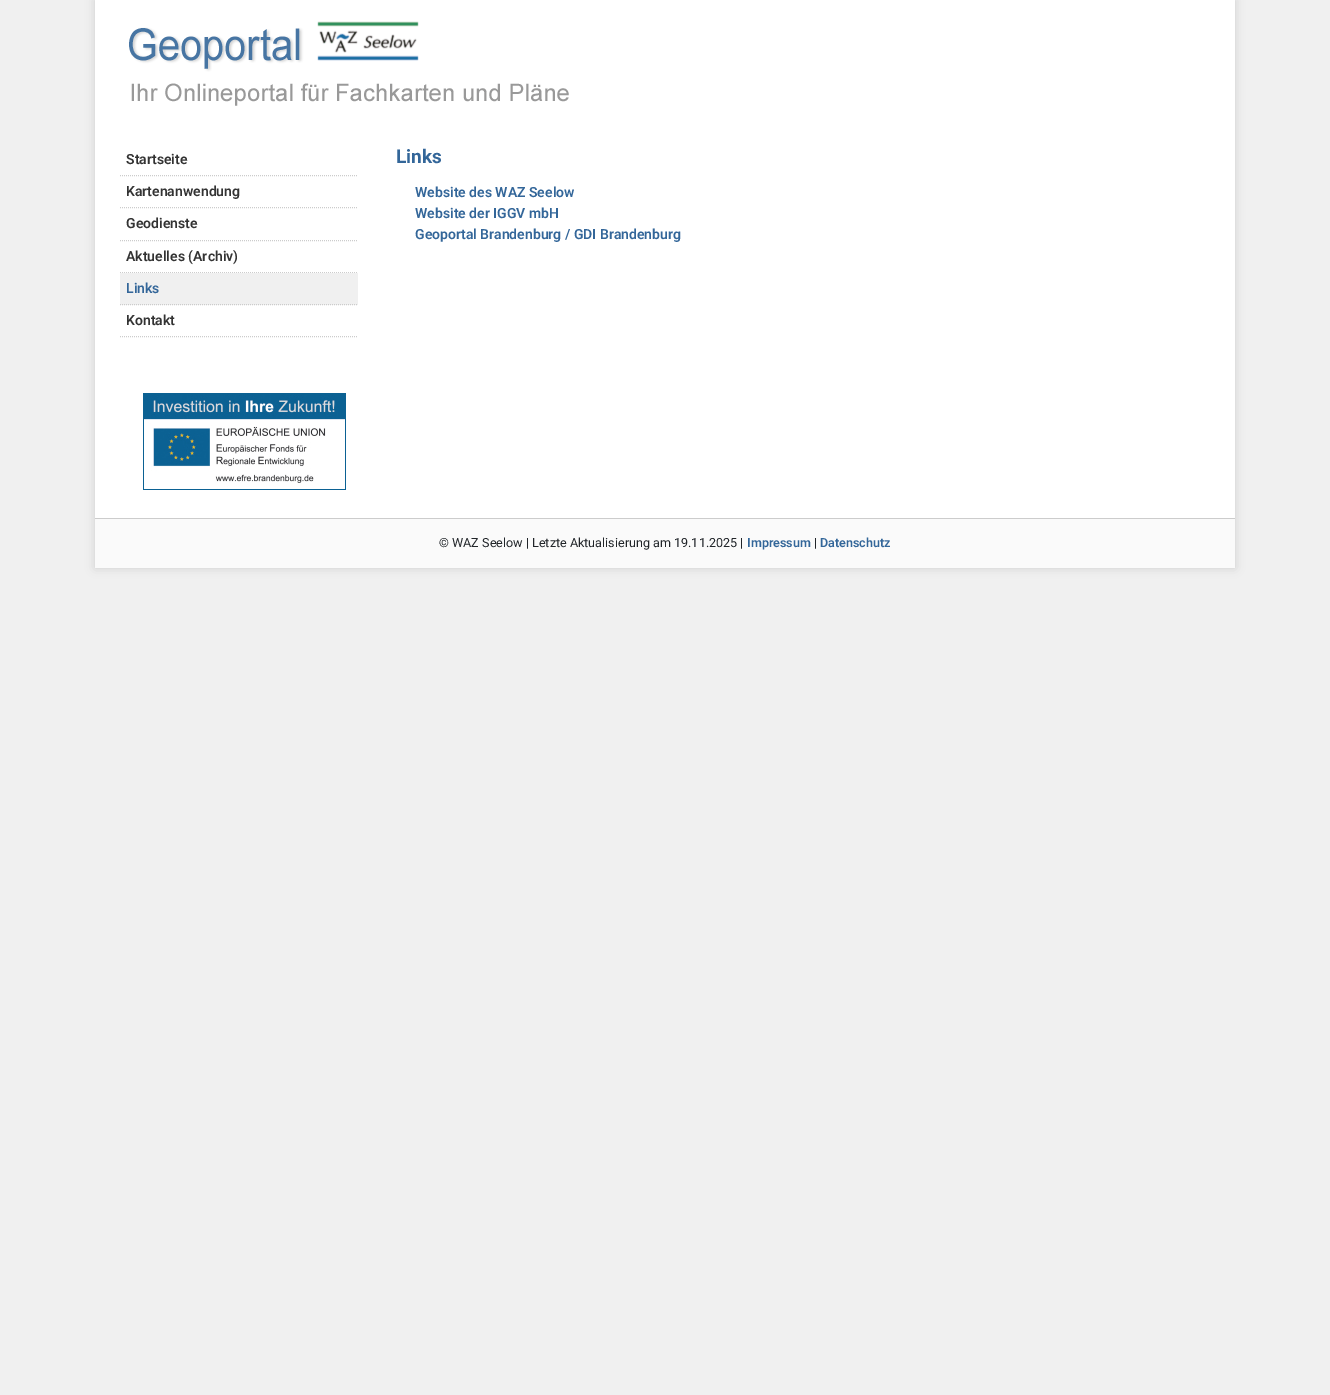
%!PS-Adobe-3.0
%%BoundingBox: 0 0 1330 1395
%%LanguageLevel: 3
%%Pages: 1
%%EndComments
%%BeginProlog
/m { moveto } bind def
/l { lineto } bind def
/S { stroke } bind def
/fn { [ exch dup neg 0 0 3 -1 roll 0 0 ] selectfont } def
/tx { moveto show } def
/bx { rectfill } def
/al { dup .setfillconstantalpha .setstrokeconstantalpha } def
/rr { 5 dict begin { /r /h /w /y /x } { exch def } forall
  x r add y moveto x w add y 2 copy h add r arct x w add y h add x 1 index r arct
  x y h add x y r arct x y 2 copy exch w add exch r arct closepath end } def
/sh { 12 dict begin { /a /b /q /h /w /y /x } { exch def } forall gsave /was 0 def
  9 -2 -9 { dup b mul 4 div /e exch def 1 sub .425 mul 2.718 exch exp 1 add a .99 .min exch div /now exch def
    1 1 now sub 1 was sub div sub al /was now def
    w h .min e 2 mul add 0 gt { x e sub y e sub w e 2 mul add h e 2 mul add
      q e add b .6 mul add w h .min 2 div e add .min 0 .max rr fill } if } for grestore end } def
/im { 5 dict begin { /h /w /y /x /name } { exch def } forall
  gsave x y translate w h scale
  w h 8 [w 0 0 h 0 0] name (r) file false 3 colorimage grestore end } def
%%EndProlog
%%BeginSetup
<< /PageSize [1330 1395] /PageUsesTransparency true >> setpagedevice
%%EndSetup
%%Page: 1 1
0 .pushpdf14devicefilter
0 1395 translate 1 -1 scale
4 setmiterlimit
0.941 setgray
0 0 1330 1395 bx
0.8 setgray
95 0 1140 568 0 5 1 sh
1 setgray
95 0 1140 518 bx
(image0.raw) 129 21 440 85 im
0.8 setgray
[1 1] 0 setdash
120 175.5 m 358 175.5 l S
/Roboto-SemiBold 14 fn
0.2 setgray
(Startseite) 126 164 tx
0.8 setgray
120 207.5 m 358 207.5 l S
0.2 setgray
(Kartenanwendung) 126 196 tx
0.8 setgray
120 240.5 m 358 240.5 l S
0.2 setgray
(Geodienste) 126 228 tx
0.8 setgray
120 272.5 m 358 272.5 l S
0.2 setgray
(Aktuelles \(Archiv\)) 126 261 tx
0.941 setgray
120 273 238 32 bx
0.8 setgray
120 304.5 m 358 304.5 l S
0.2 0.4 0.6 setrgbcolor
(Links) 126 293 tx
0.8 setgray
120 336.5 m 358 336.5 l S
0.2 setgray
(Kontakt) 126 325 tx
(image1.raw) 143 393 203 97 im
/Roboto-Bold 19 fn
0.2 0.4 0.6 setrgbcolor
(Links) 396 163 tx
/Roboto-SemiBold 14 fn
(Website des WAZ Seelow) 415 197 tx
(Website der IGGV mbH) 415 218 tx
(Geoportal Brandenburg / GDI Brandenburg) 415 239 tx
0.98 setgray
95 519 1140 49 bx
0.8 setgray
95 518 1140 1 bx
/Roboto-Regular 12.6 fn
0.129 0.145 0.161 setrgbcolor
(© WAZ Seelow | Letzte Aktualisierung am 19.11.2025 |) 439 547 tx
/Roboto-SemiBold 12.6 fn
0.2 0.4 0.6 setrgbcolor
(Impressum) 747 547 tx
/Roboto-Regular 12.6 fn
0.129 0.145 0.161 setrgbcolor
(|) 814 547 tx
/Roboto-SemiBold 12.6 fn
0.2 0.4 0.6 setrgbcolor
(Datenschutz) 820 547 tx
.poppdf14devicefilter showpage
%%EOF
